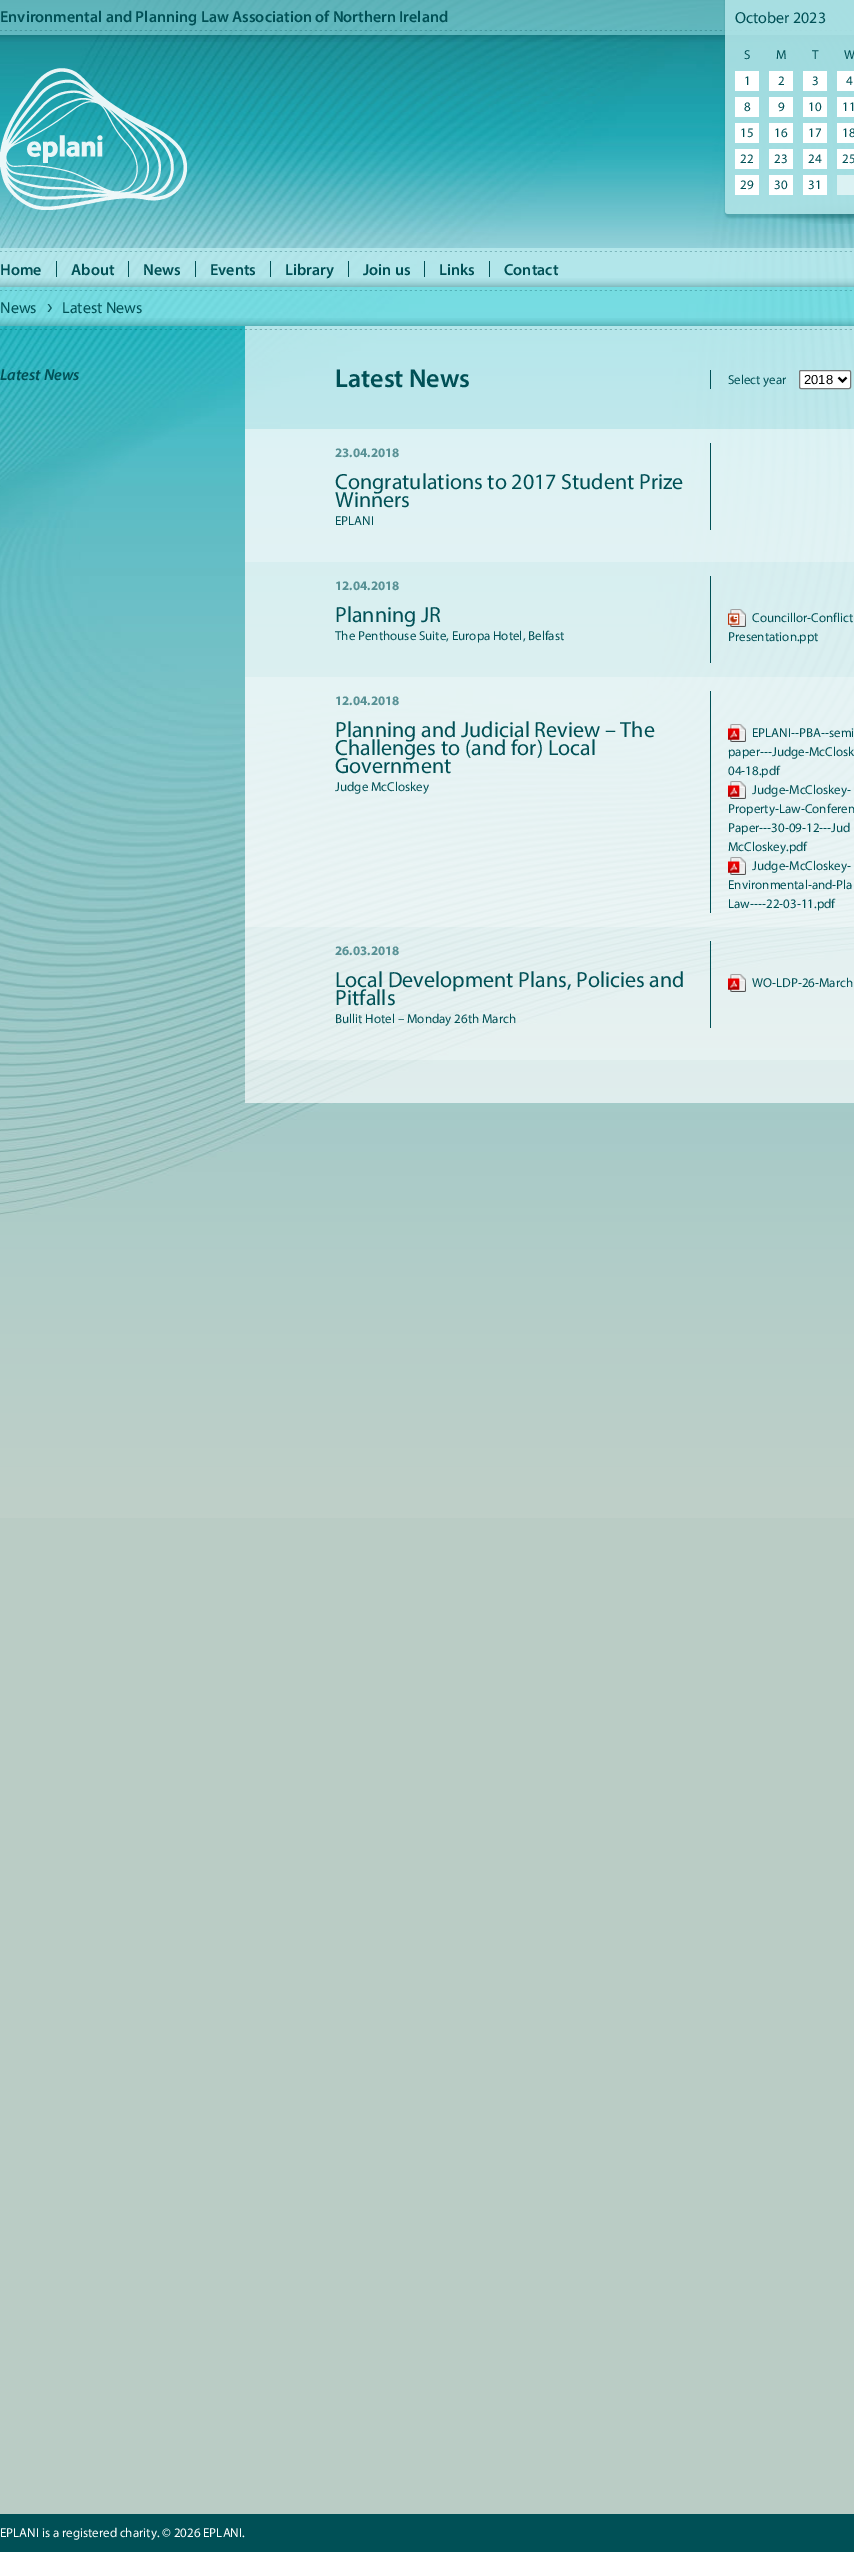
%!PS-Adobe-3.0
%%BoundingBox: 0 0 854 2552
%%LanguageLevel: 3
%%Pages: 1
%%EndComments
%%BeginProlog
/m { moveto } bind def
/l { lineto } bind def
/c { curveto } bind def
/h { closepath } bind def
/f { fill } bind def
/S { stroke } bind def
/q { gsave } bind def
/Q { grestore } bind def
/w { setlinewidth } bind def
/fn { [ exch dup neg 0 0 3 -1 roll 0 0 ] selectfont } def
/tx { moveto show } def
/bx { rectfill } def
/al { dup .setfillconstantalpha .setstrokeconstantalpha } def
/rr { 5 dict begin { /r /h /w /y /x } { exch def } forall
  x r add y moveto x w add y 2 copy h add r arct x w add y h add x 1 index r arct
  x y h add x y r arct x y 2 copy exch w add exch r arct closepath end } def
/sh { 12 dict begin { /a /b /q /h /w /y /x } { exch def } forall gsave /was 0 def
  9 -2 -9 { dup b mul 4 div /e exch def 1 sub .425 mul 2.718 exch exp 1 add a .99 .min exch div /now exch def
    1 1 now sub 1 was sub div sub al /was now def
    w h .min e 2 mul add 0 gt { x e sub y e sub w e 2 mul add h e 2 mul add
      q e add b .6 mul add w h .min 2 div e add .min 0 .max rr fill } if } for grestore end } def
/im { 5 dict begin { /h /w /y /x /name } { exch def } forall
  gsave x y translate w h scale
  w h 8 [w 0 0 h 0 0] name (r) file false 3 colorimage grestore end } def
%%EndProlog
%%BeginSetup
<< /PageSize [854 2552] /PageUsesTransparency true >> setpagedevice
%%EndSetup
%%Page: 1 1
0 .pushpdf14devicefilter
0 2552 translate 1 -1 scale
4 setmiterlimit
0.729 0.8 0.773 setrgbcolor
0 0 854 2552 bx
(image0.raw) 0 1215 854 303 im
(image1.raw) 0 0 854 1215 im
0.5 al
0.647 0.898 0.914 setrgbcolor
0 0 854 35 bx
1 al
(image2.raw) 0 30 852 1 im
/Myriad-SemiBold 16 fn
0 0.314 0.337 setrgbcolor
(Environmental and Planning Law Association of Northern Ireland) 0 22 tx
(image3.raw) 770 203 84 21 im
(image4.raw) 0 35 854 7 im
q
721 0 m 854 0 l 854 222 l 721 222 l h 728 -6 m 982 -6 l 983.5 -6 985 -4.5 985 -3 c 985 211 l 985 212.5 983.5 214 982 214 c 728 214 l 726.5 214 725 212.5 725 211 c 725 -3 l 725 -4.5 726.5 -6 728 -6 c h eoclip newpath
725 -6 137 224 5 1 0.25 sh
Q
0.9 al
0.686 0.89 0.902 setrgbcolor
725 -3 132 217 3 rr f
/Myriad-Regular 16 fn
1 al
0 0.314 0.337 setrgbcolor
(October 2023) 735 23 tx
/Myriad-Regular 13 fn
(S) 744 59 tx
(M) 776 59 tx
(T) 812 59 tx
(W) 844 59 tx
1 setgray
735 71 24 20 bx
0 0.314 0.337 setrgbcolor
(1) 744 85 tx
1 setgray
769 71 24 20 bx
0 0.314 0.337 setrgbcolor
(2) 778 85 tx
1 setgray
803 71 24 20 bx
0 0.314 0.337 setrgbcolor
(3) 812 85 tx
1 setgray
837 71 17 20 bx
0 0.314 0.337 setrgbcolor
(4) 846 85 tx
1 setgray
735 97 24 20 bx
0 0.314 0.337 setrgbcolor
(8) 744 111 tx
1 setgray
769 97 24 20 bx
0 0.314 0.337 setrgbcolor
(9) 778 111 tx
1 setgray
803 97 24 20 bx
0 0.314 0.337 setrgbcolor
(10) 808 111 tx
1 setgray
837 97 17 20 bx
0 0.314 0.337 setrgbcolor
(11) 842 111 tx
1 setgray
735 123 24 20 bx
0 0.314 0.337 setrgbcolor
(15) 740 137 tx
1 setgray
769 123 24 20 bx
0 0.314 0.337 setrgbcolor
(16) 774 137 tx
1 setgray
803 123 24 20 bx
0 0.314 0.337 setrgbcolor
(17) 808 137 tx
1 setgray
837 123 17 20 bx
0 0.314 0.337 setrgbcolor
(18) 842 137 tx
1 setgray
735 149 24 20 bx
0 0.314 0.337 setrgbcolor
(22) 740 163 tx
1 setgray
769 149 24 20 bx
0 0.314 0.337 setrgbcolor
(23) 774 163 tx
1 setgray
803 149 24 20 bx
0 0.314 0.337 setrgbcolor
(24) 808 163 tx
1 setgray
837 149 17 20 bx
0 0.314 0.337 setrgbcolor
(25) 842 163 tx
1 setgray
735 175 24 20 bx
0 0.314 0.337 setrgbcolor
(29) 740 189 tx
1 setgray
769 175 24 20 bx
0 0.314 0.337 setrgbcolor
(30) 774 189 tx
1 setgray
803 175 24 20 bx
0 0.314 0.337 setrgbcolor
(31) 808 189 tx
0.6 al
1 setgray
837 175 17 20 bx
1 al
(image5.raw) 0 68 187 142 im
0.65 al
0 248 854 39 bx
1 al
(image6.raw) 0 251 852 1 im
0 0.314 0.337 setrgbcolor
56 261 1 16 bx
/Myriad-SemiBold 16 fn
(Home) 0 275 tx
128 261 1 16 bx
(About) 71 275 tx
195 261 1 16 bx
(News) 143 275 tx
270 261 1 16 bx
(Events) 210 275 tx
348 261 1 16 bx
(Library) 285 275 tx
424 261 1 16 bx
(Join us) 363 275 tx
489 261 1 16 bx
(Links) 439 275 tx
(Contact) 504 275 tx
(image7.raw) 0 278 854 9 im
0.5 al
0.788 1 1 setrgbcolor
0 287 854 39 bx
1 al
(image8.raw) 0 290 852 1 im
/Myriad-Regular 16 fn
0 0.314 0.337 setrgbcolor
(News) 0 313 tx
(image9.raw) 47 304 5 8 im
(Latest News) 62 313 tx
(image10.raw) 0 318 854 8 im
(image11.raw) 0 329 852 1 im
/Myriad-SemiBoldItalic 16 fn
(Latest News) 0 380 tx
0.65 al
1 setgray
245 326 609 777 bx
1 al
(image12.raw) 245 329 607 1 im
/Myriad-SemiBold 26 fn
0 0.314 0.337 setrgbcolor
(Latest News) 335 387 tx
710 370 1 19 bx
/Myriad-Regular 13 fn
(Select year) 728 384 tx
1 setgray
799.5 370.5 51 18 1.5 rr q f Q
0.463 setgray
S
0 setgray
2 w
838.5 377.5 m 842.5 381.5 l 846.5 377.5 l S
/LiberationSans-Regular 13 fn
(2018) 804 384 tx
0.45 al
1 setgray
245 429 609 133 bx
/Myriad-Bold 13 fn
1 al
0.345 0.569 0.584 setrgbcolor
(23.04.2018) 335 457 tx
/Myriad-Regular 22 fn
0 0.314 0.337 setrgbcolor
(Congratulations to 2017 Student Prize) 335 489 tx
(Winners) 335 507 tx
/Myriad-Regular 13 fn
(EPLANI) 335 525 tx
710 443 1 87 bx
0.25 al
1 setgray
245 562 609 115 bx
/Myriad-Bold 13 fn
1 al
0.345 0.569 0.584 setrgbcolor
(12.04.2018) 335 590 tx
/Myriad-Regular 22 fn
0 0.314 0.337 setrgbcolor
(Planning JR) 335 622 tx
/Myriad-Regular 13 fn
(The Penthouse Suite, Europa Hotel, Belfast) 335 640 tx
710 576 1 87 bx
(image13.raw) 728 609 18 18 im
(Councillor-Conflict) 752 622 tx
(Presentation.ppt) 728 641 tx
0.45 al
1 setgray
245 677 609 250 bx
/Myriad-Bold 13 fn
1 al
0.345 0.569 0.584 setrgbcolor
(12.04.2018) 335 705 tx
/Myriad-Regular 22 fn
0 0.314 0.337 setrgbcolor
(Planning and Judicial Review – The) 335 737 tx
(Challenges to \(and for\) Local) 335 755 tx
(Government) 335 773 tx
/Myriad-Regular 13 fn
(Judge McCloskey) 335 791 tx
710 691 1 222 bx
(image14.raw) 728 724 18 18 im
(EPLANI--PBA--semi) 752 737 tx
(paper---Judge-McClosk) 728 756 tx
(04-18.pdf) 728 775 tx
(image15.raw) 728 781 18 18 im
(Judge-McCloskey-) 752 794 tx
(Property-Law-Conferen) 728 813 tx
(Paper---30-09-12---Jud) 728 832 tx
(McCloskey.pdf) 728 851 tx
(image16.raw) 728 857 18 18 im
(Judge-McCloskey-) 752 870 tx
(Environmental-and-Pla) 728 889 tx
(Law----22-03-11.pdf) 728 908 tx
0.25 al
1 setgray
245 927 609 133 bx
/Myriad-Bold 13 fn
1 al
0.345 0.569 0.584 setrgbcolor
(26.03.2018) 335 955 tx
/Myriad-Regular 22 fn
0 0.314 0.337 setrgbcolor
(Local Development Plans, Policies and) 335 987 tx
(Pitfalls) 335 1005 tx
/Myriad-Regular 13 fn
(Bullit Hotel – Monday 26th March) 335 1023 tx
710 941 1 87 bx
(image17.raw) 728 974 18 18 im
(WO-LDP-26-March) 752 987 tx
0 2514 854 38 bx
1 setgray
(EPLANI is a registered charity. © 2026 EPLANI.) 0 2537 tx
.poppdf14devicefilter showpage
%%EOF
